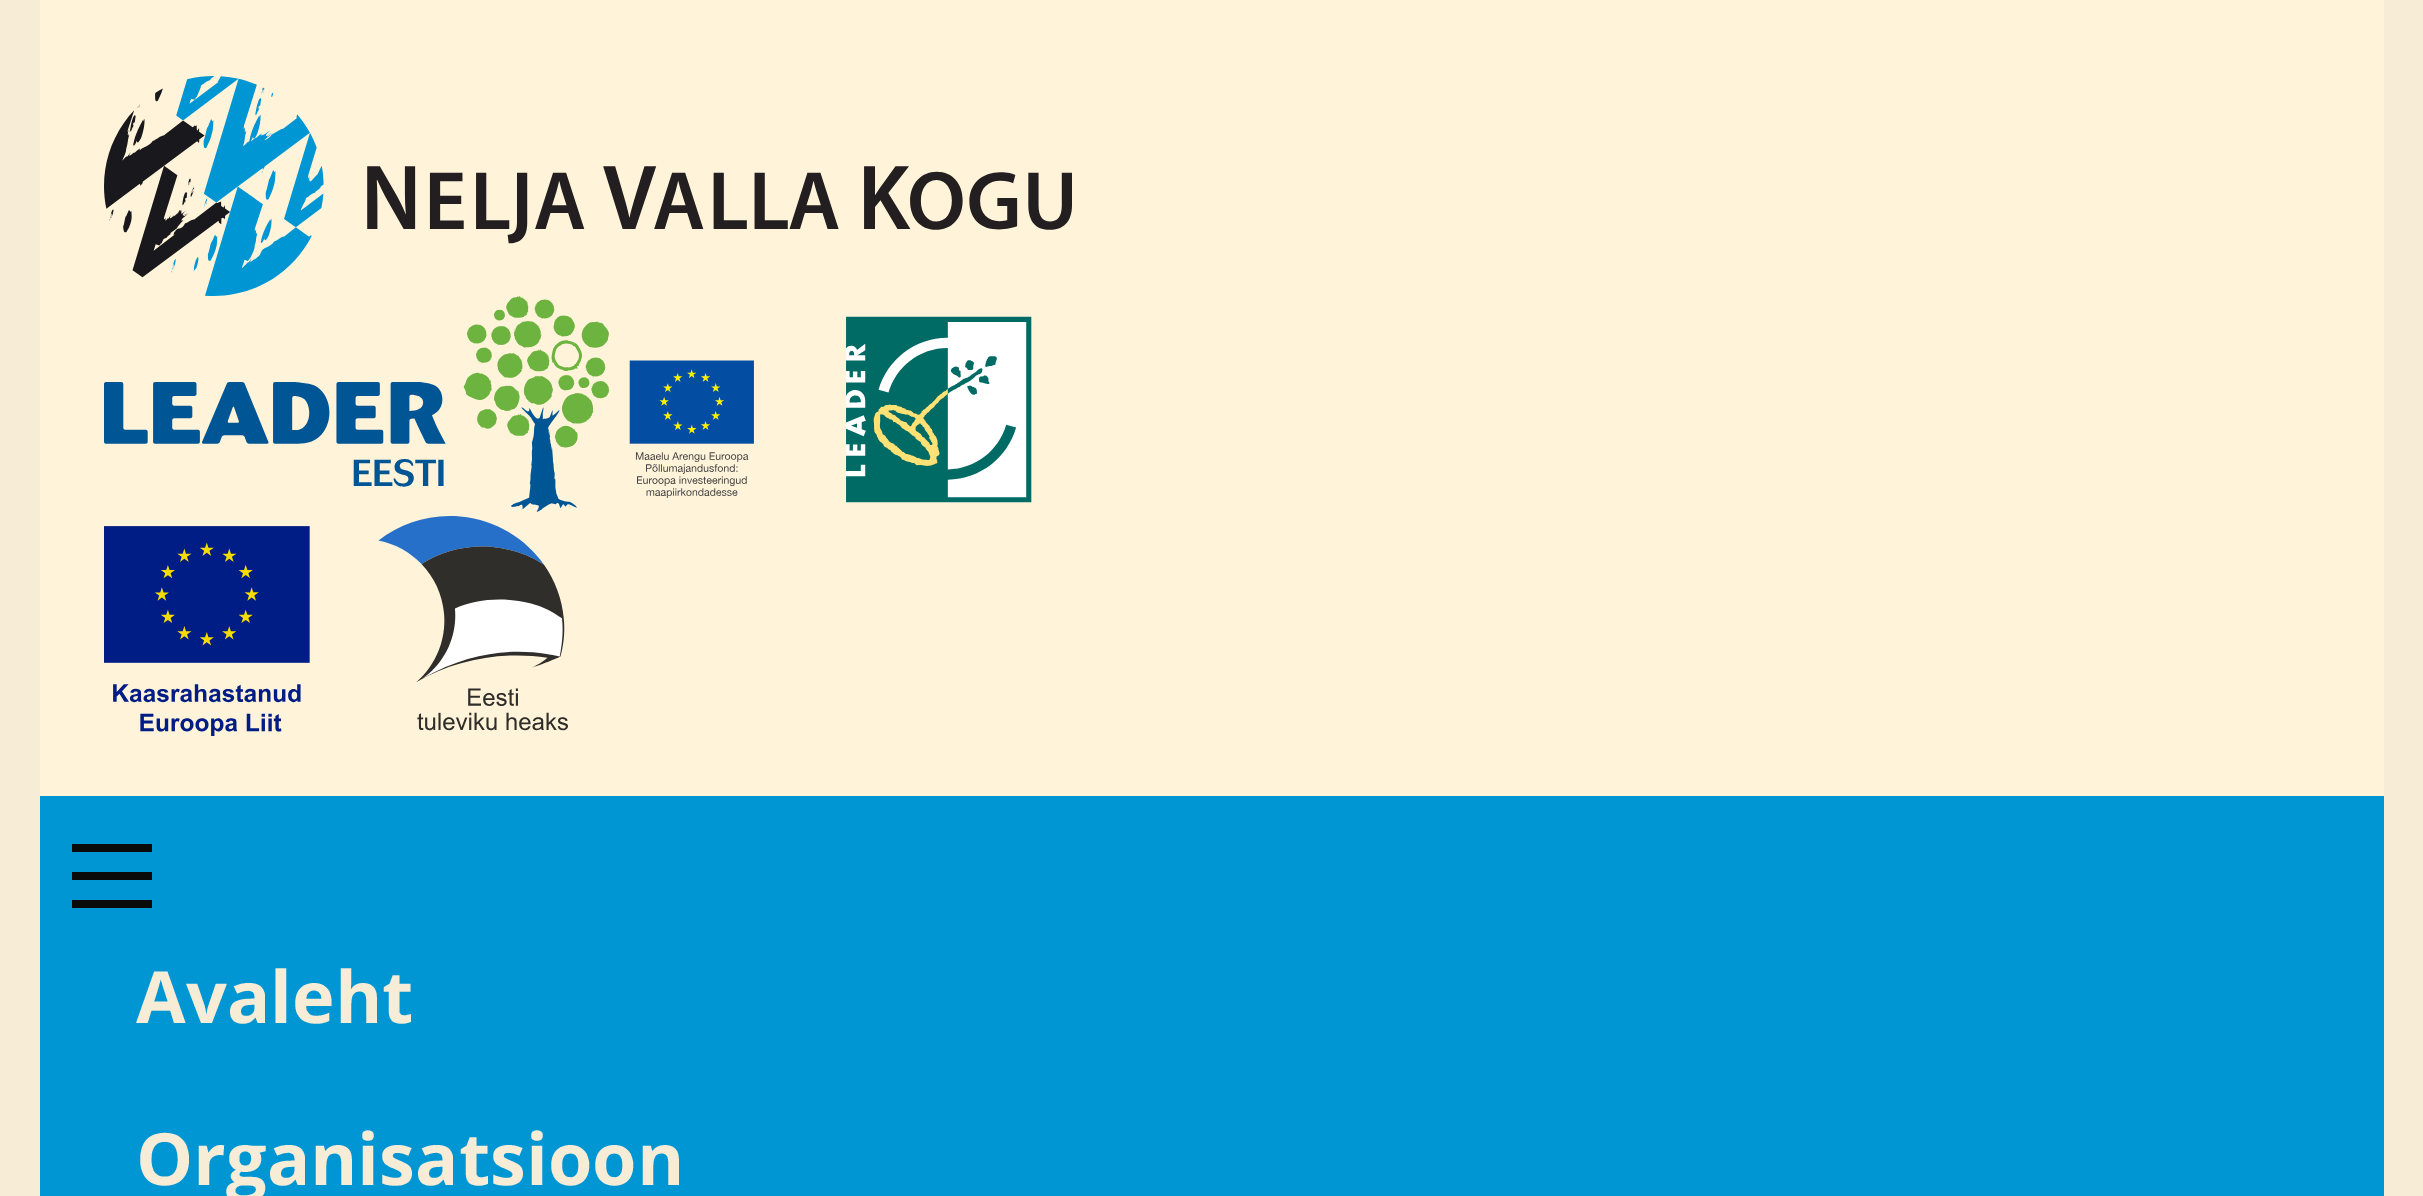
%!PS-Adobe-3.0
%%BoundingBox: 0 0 2423 1196
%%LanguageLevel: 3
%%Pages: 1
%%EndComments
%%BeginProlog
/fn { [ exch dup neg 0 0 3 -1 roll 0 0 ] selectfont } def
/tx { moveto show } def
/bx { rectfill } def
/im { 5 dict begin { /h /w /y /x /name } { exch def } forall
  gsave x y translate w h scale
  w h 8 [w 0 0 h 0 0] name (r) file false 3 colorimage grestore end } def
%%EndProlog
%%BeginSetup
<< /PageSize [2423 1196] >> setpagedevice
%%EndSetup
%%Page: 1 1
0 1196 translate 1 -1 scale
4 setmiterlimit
0.969 0.925 0.835 setrgbcolor
0 0 2423 1196 bx
1 0.953 0.851 setrgbcolor
40 0 2344 796 bx
(image0.raw) 104 76 968 220 im
(image1.raw) 104 296 928 216 im
(image2.raw) 104 516 464 220 im
0 0.588 0.831 setrgbcolor
40 796 2344 400 bx
0.039 setgray
72 900 80 8 bx
72 872 80 8 bx
72 844 80 8 bx
/OpenSans-Bold 72 fn
0.969 0.925 0.835 setrgbcolor
(Avaleht) 136 1023 tx
(Organisatsioon) 136 1185 tx
showpage
%%EOF
